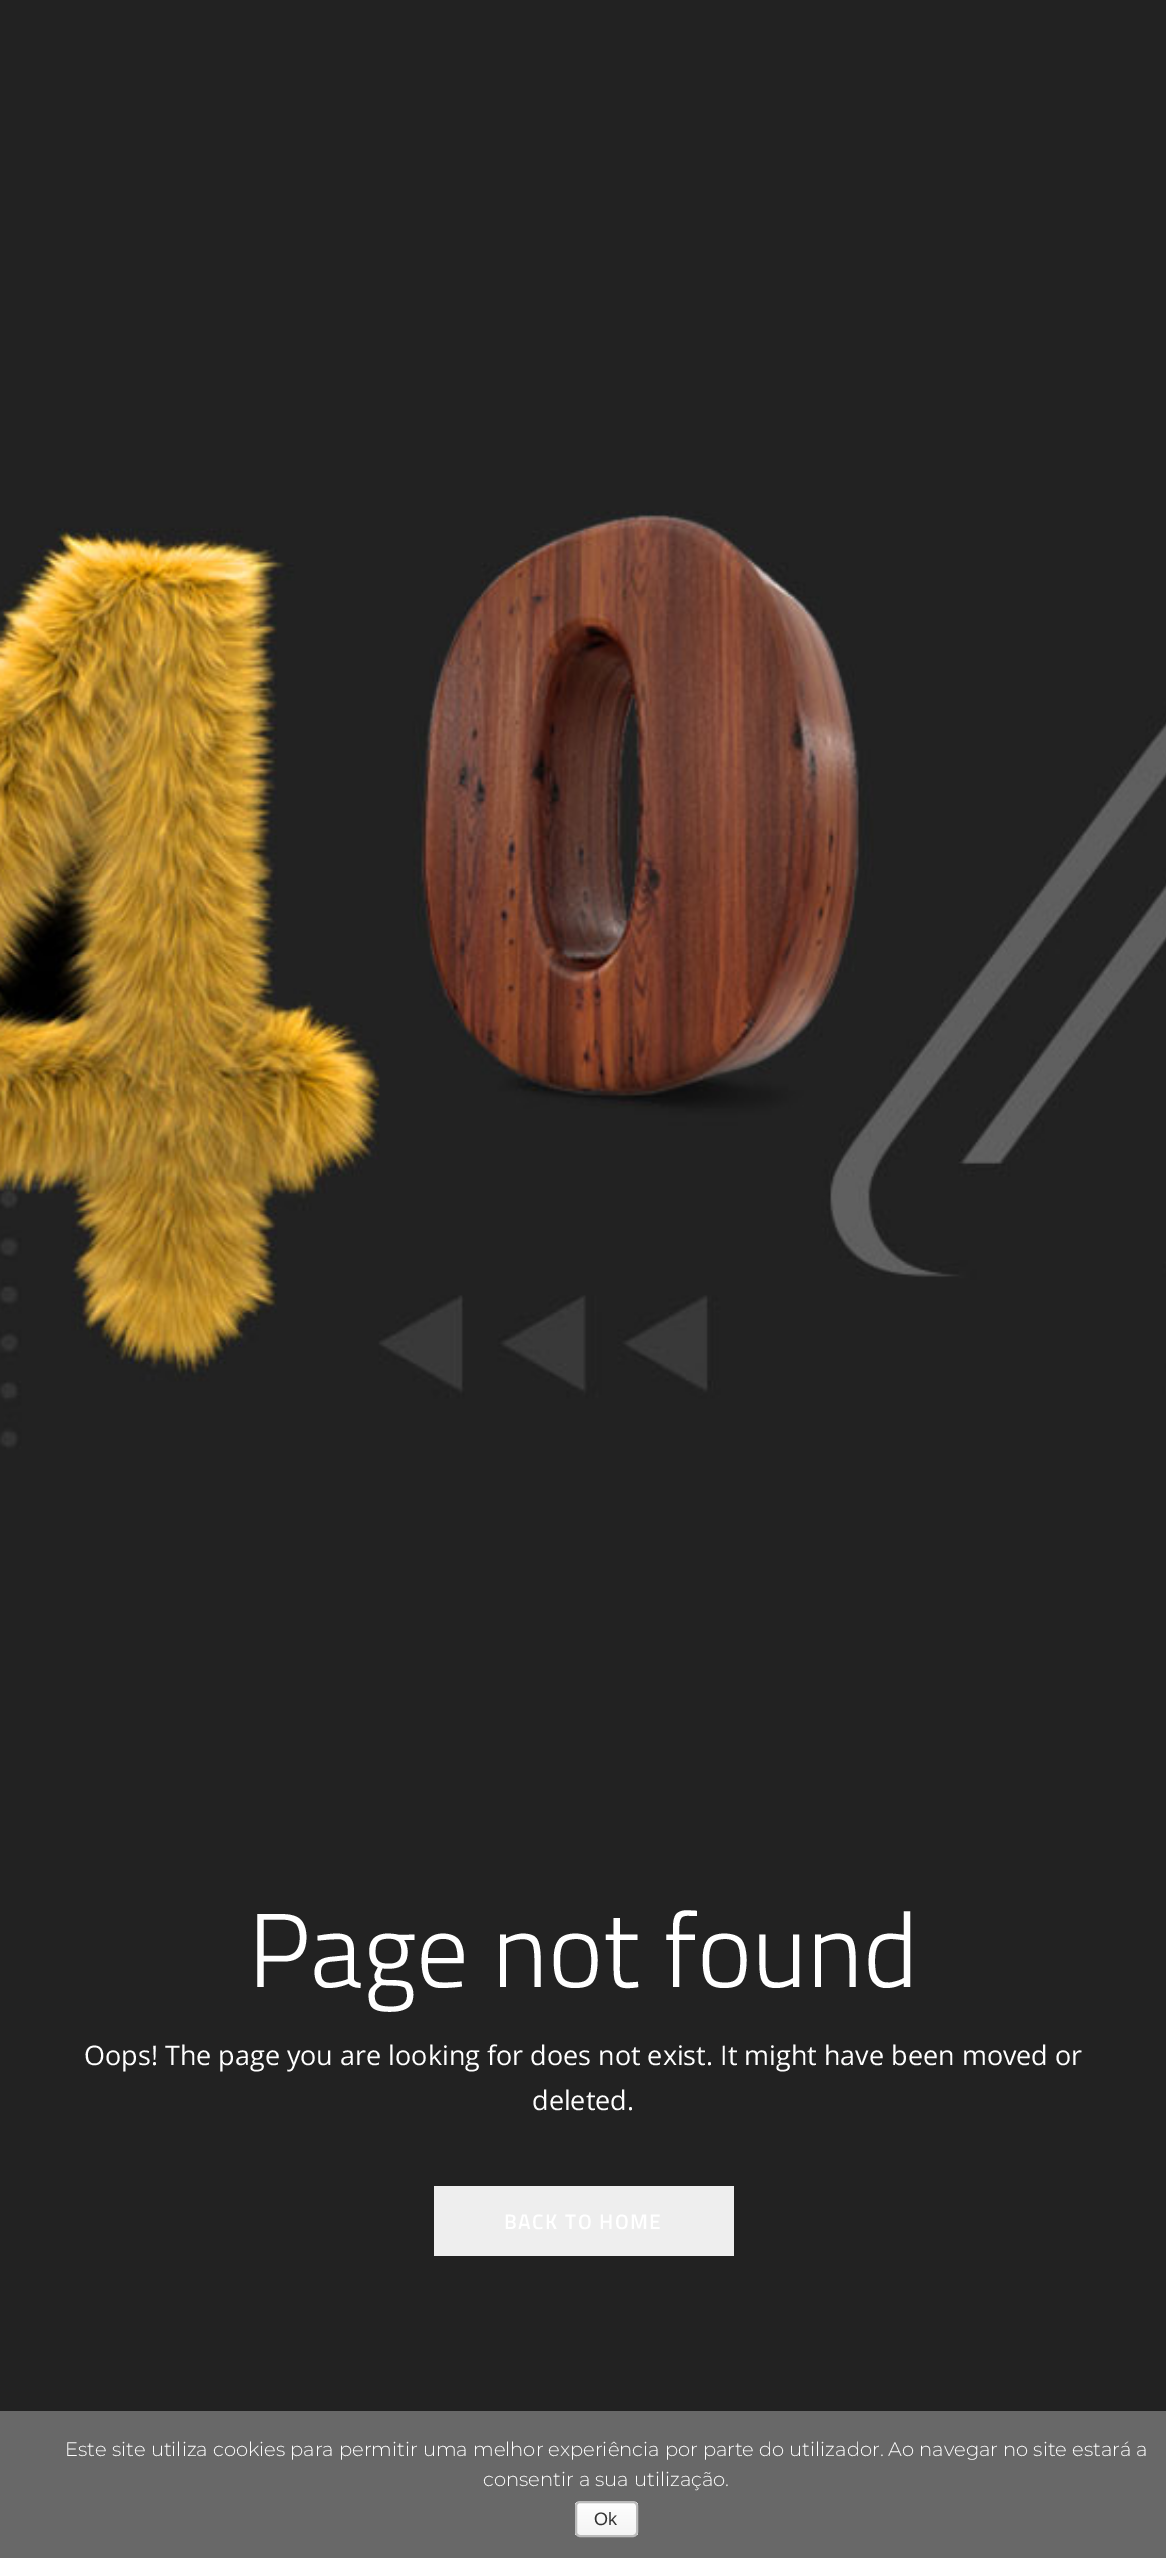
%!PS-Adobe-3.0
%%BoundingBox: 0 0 1166 2558
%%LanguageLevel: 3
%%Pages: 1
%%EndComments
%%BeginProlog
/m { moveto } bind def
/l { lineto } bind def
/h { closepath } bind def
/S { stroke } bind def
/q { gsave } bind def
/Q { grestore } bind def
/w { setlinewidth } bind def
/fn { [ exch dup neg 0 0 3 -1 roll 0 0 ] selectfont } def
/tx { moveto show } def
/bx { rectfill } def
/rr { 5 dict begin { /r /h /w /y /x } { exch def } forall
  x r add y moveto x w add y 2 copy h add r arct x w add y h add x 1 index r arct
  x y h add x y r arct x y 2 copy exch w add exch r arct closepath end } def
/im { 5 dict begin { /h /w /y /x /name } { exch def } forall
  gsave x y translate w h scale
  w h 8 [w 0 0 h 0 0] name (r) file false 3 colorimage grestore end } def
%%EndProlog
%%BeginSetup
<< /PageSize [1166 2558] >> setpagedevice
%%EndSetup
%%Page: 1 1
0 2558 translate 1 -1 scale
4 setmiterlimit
1 setgray
0 0 1166 2558 bx
(image0.raw) 0 0 1166 2411 im
/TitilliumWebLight-Light 105 fn
(Page not found) 248 1987 tx
/OpenSans-Regular 27 fn
(Oops! The page you are looking for does not exist. It might have been moved or) 84 2065 tx
(deleted.) 532 2110 tx
0.933 setgray
434 2186 300 70 bx
/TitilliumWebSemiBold-SemiBold 21 fn
1 setgray
504 2229 m 1.5 0 (BACK TO HOME) ashow
0.408 setgray
0 2411 1166 147 bx
/Montserrat-Light 19.5 fn
1 setgray
(Este site utiliza cookies para permitir uma melhor experiência por parte do utilizador. Ao navegar no site estará a) 65 2456 tx
(consentir a sua utilização.) 483 2486 tx
q
575 2501 63 36 5 rr clip newpath
q 575 2502 m 638 2502 l 638 2535 l 575 2535 l h clip newpath
<< /ShadingType 2 /ColorSpace /DeviceRGB /Coords [606 2502 606 2535] /Extend [true true] /Function << /FunctionType 2 /Domain [0 1] /C0 [0.996 0.996 0.996] /C1 [0.957 0.957 0.957] /N 1 >> >> shfill Q
Q
0.733 setgray
2 w
576 2502 61 34 4 rr S
/LiberationSans-Regular 18 fn
0.2 setgray
(Ok) 594 2525 tx
showpage
%%EOF
